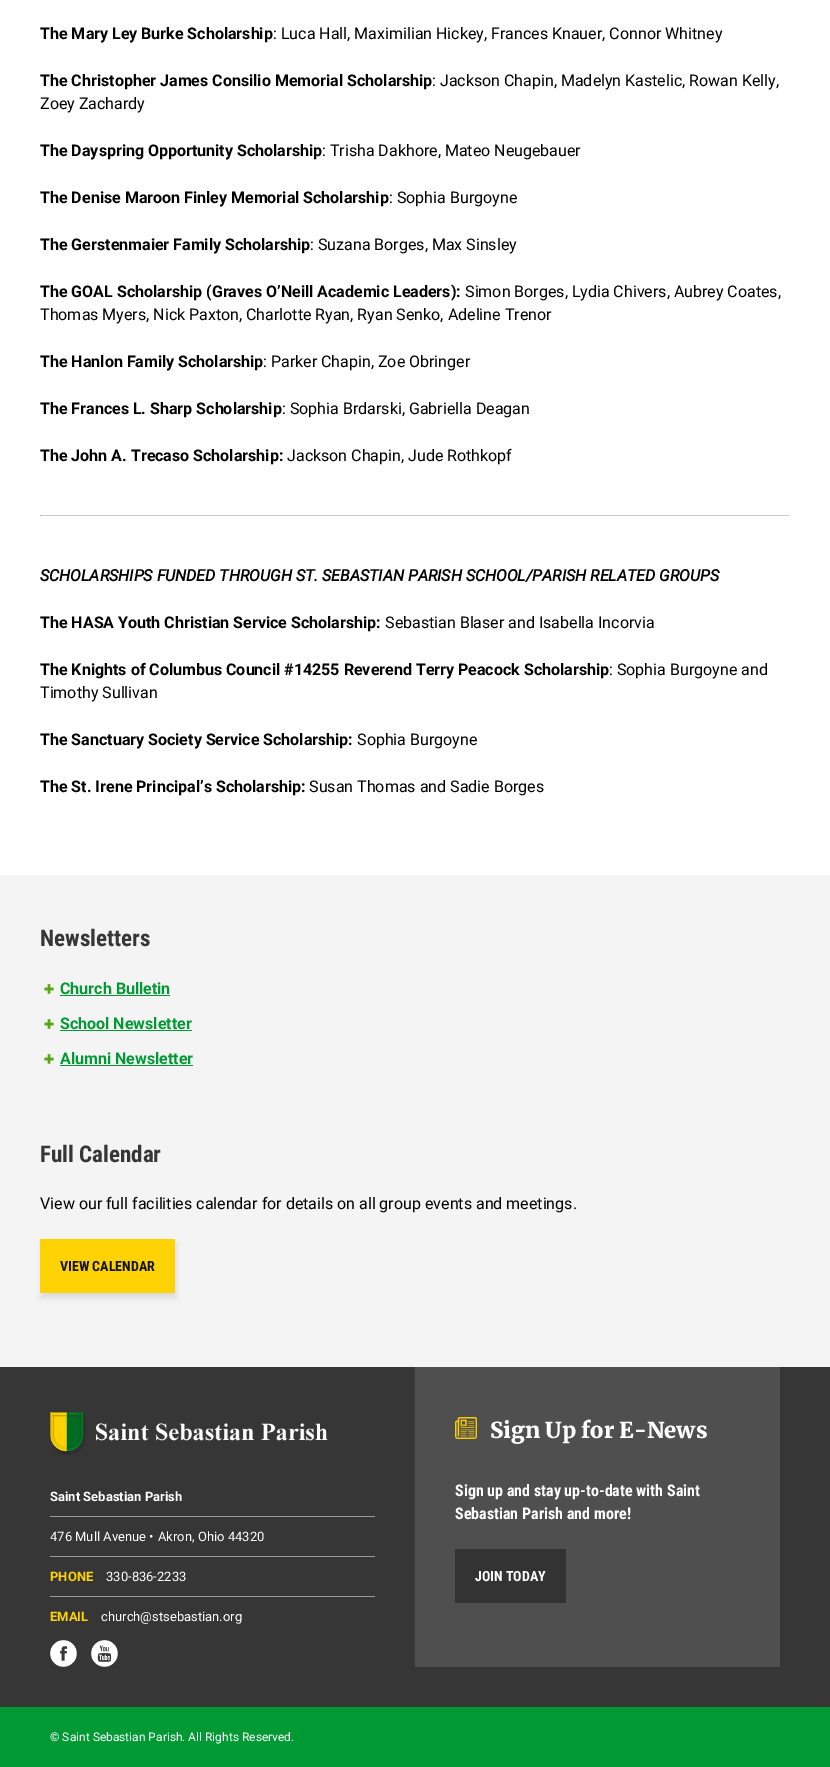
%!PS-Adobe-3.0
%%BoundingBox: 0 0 830 1767
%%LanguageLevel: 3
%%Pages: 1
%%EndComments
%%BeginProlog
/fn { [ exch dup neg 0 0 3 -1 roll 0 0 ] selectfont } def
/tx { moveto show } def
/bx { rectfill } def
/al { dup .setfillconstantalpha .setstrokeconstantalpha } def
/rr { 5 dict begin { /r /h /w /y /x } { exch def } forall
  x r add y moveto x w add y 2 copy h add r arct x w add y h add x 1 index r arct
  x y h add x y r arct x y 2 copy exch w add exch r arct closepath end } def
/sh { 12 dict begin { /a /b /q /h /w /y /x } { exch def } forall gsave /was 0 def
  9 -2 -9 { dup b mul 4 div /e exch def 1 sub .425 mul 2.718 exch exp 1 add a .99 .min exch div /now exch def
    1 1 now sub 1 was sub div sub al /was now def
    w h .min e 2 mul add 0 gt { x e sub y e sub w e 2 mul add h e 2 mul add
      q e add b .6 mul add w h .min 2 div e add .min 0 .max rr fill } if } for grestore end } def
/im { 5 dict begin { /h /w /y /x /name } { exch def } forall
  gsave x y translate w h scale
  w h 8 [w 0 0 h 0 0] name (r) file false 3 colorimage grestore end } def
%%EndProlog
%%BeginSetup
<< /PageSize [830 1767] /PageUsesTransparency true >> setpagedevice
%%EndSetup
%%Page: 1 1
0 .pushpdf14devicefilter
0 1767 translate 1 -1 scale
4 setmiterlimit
0.212 setgray
0 0 830 1767 bx
1 setgray
0 0 830 875 bx
/Roboto-Bold 16 fn
0 setgray
(The Mary Ley Burke Scholarship) 40 39 tx
/Roboto-Regular 16 fn
(: Luca Hall, Maximilian Hickey, Frances Knauer, Connor Whitney) 273 39 tx
/Roboto-Bold 16 fn
(The Christopher James Consilio Memorial Scholarship) 40 86 tx
/Roboto-Regular 16 fn
(: Jackson Chapin, Madelyn Kastelic, Rowan Kelly,) 432 86 tx
(Zoey Zachardy) 40 109 tx
/Roboto-Bold 16 fn
(The Dayspring Opportunity Scholarship) 40 156 tx
/Roboto-Regular 16 fn
(: Trisha Dakhore, Mateo Neugebauer) 322 156 tx
/Roboto-Bold 16 fn
(The Denise Maroon Finley Memorial Scholarship) 40 203 tx
/Roboto-Regular 16 fn
(: Sophia Burgoyne) 389 203 tx
/Roboto-Bold 16 fn
(The Gerstenmaier Family Scholarship) 40 250 tx
/Roboto-Regular 16 fn
(: Suzana Borges, Max Sinsley) 310 250 tx
/Roboto-Bold 16 fn
(The GOAL Scholarship \(Graves O’Neill Academic Leaders\):) 40 297 tx
/Roboto-Regular 16 fn
(Simon Borges, Lydia Chivers, Aubrey Coates,) 465 297 tx
(Thomas Myers, Nick Paxton, Charlotte Ryan, Ryan Senko, Adeline Trenor) 40 320 tx
/Roboto-Bold 16 fn
(The Hanlon Family Scholarship) 40 367 tx
/Roboto-Regular 16 fn
(: Parker Chapin, Zoe Obringer) 263 367 tx
/Roboto-Bold 16 fn
(The Frances L. Sharp Scholarship) 40 414 tx
/Roboto-Regular 16 fn
(: Sophia Brdarski, Gabriella Deagan) 282 414 tx
/Roboto-Bold 16 fn
(The John A. Trecaso Scholarship:) 40 461 tx
/Roboto-Regular 16 fn
(Jackson Chapin, Jude Rothkopf) 287 461 tx
0.8 setgray
40 515 750 1 bx
0.933 setgray
789 515 1 1 bx
0.624 setgray
40 515 1 1 bx
/Roboto-BoldItalic 16 fn
0 setgray
(SCHOLARSHIPS FUNDED THROUGH ST. SEBASTIAN PARISH SCHOOL/PARISH RELATED GROUPS) 40 581 tx
/Roboto-Bold 16 fn
(The HASA Youth Christian Service Scholarship:) 40 628 tx
/Roboto-Regular 16 fn
(Sebastian Blaser and Isabella Incorvia) 385 628 tx
/Roboto-Bold 16 fn
(The Knights of Columbus Council #14255 Reverend Terry Peacock Scholarship) 40 675 tx
/Roboto-Regular 16 fn
(: Sophia Burgoyne and) 609 675 tx
(Timothy Sullivan) 40 698 tx
/Roboto-Bold 16 fn
(The Sanctuary Society Service Scholarship:) 40 745 tx
/Roboto-Regular 16 fn
(Sophia Burgoyne) 357 745 tx
/Roboto-Bold 16 fn
(The St. Irene Principal’s Scholarship:) 40 792 tx
/Roboto-Regular 16 fn
(Susan Thomas and Sadie Borges) 309 792 tx
0.957 setgray
0 875 830 492 bx
/RobotoCondensed-Bold 23 fn
0.212 setgray
(Newsletters) 40 946 tx
(image0.raw) 44 984 10 10 im
/Roboto-Bold 16 fn
0 0.6 0.2 setrgbcolor
(Church Bulletin) 60 994 tx
60 995 110 1 bx
(image0.raw) 44 1019 10 10 im
(School Newsletter) 60 1029 tx
60 1030 132 1 bx
(image0.raw) 44 1054 10 10 im
(Alumni Newsletter) 60 1064 tx
60 1065 133 1 bx
/RobotoCondensed-Bold 23 fn
0.212 setgray
(Full Calendar) 40 1162 tx
/Roboto-Regular 16 fn
0 setgray
(View our full facilities calendar for details on all group events and meetings.) 40 1209 tx
41 1244 135 54 0 3 0.1 sh
1 0.824 0.016 setrgbcolor
40 1239 135 54 bx
/RobotoCondensed-Bold 14 fn
0.078 setgray
(VIEW CALENDAR) 60 1271 tx
(image1.raw) 50 1412 278 43 im
0.6 setgray
50 1516 325 1 bx
/Roboto-Bold 13 fn
1 setgray
(Saint Sebastian Parish) 50 1501 tx
0.6 setgray
50 1556 325 1 bx
/Roboto-Regular 13 fn
1 setgray
(476 Mull Avenue •) 50 1541 tx
(Akron, Ohio 44320) 158 1541 tx
0.6 setgray
50 1596 325 1 bx
/Roboto-Bold 13 fn
1 0.824 0.016 setrgbcolor
(PHONE) 50 1581 tx
/Roboto-Regular 13 fn
1 setgray
(330-836-2233) 106 1581 tx
/Roboto-Bold 13 fn
1 0.824 0.016 setrgbcolor
(EMAIL) 50 1621 tx
/Roboto-Regular 13 fn
1 setgray
(church@stsebastian.org) 101 1621 tx
(image2.raw) 50 1640 27 27 im
(image3.raw) 91 1640 27 27 im
0.31 setgray
415 1367 365 300 bx
(image4.raw) 455 1417 22 22 im
/Merriweather-Light 22 fn
1 setgray
(Sign Up for E-News) 490 1438 tx
/RobotoCondensed-Bold 16 fn
(Sign up and stay up-to-date with Saint) 455 1496 tx
(Sebastian Parish and more!) 455 1519 tx
0.2 setgray
455 1549 111 54 bx
/RobotoCondensed-Bold 14 fn
1 setgray
(JOIN TODAY) 475 1581 tx
0 0.6 0.2 setrgbcolor
0 1707 830 60 bx
/Roboto-Regular 12 fn
1 setgray
(© Saint Sebastian Parish. All Rights Reserved.) 50 1741 tx
.poppdf14devicefilter showpage
%%EOF
